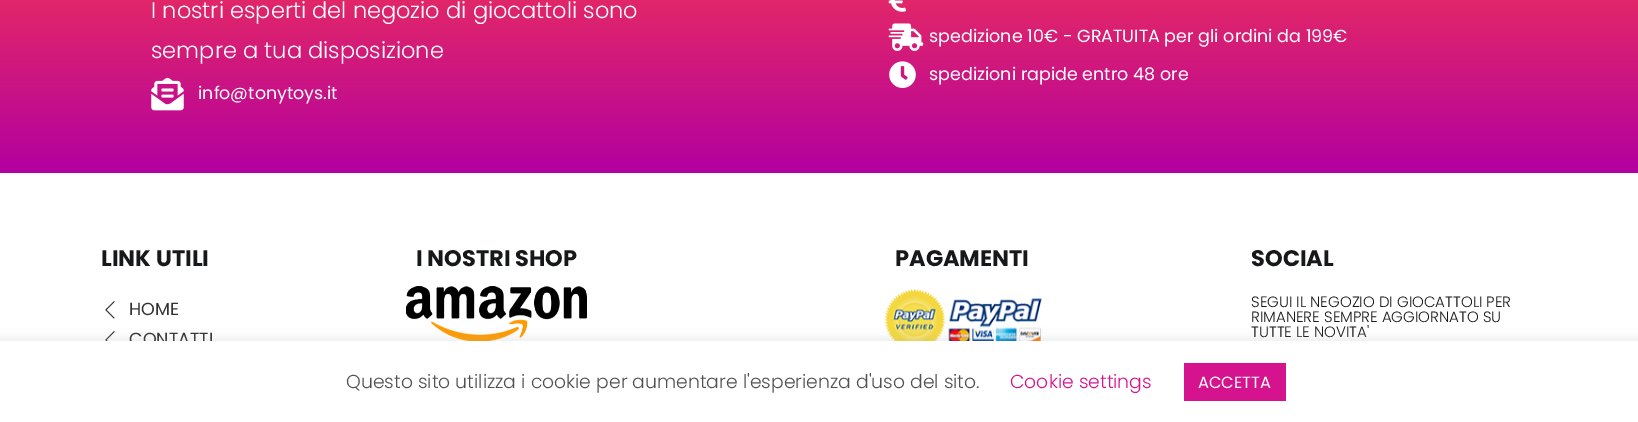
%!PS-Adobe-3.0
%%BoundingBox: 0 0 1638 422
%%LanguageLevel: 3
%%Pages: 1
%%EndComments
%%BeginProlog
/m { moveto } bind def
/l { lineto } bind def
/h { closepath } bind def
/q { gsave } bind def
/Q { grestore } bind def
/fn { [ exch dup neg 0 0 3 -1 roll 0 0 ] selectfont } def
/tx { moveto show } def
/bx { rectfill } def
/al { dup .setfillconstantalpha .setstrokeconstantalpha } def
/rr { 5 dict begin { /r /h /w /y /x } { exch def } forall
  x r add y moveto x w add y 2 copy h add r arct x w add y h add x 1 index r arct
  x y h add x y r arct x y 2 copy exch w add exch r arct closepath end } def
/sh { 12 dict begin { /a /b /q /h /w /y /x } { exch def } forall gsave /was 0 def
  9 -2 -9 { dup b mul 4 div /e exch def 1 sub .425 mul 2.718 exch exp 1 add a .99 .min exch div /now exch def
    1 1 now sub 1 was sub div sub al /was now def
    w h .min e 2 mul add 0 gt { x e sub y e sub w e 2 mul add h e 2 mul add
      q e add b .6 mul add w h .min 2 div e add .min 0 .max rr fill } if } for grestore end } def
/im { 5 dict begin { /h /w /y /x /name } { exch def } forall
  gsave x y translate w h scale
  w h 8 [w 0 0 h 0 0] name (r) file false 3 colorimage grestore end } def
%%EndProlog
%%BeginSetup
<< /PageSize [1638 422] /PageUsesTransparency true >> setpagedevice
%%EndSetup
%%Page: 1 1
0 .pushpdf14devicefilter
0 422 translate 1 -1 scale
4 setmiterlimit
1 setgray
0 0 1638 422 bx
q 0 0 m 1638 0 l 1638 173 l 0 173 l h clip newpath
<< /ShadingType 2 /ColorSpace /DeviceRGB /Coords [819 -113 819 173] /Extend [true true] /Function << /FunctionType 2 /Domain [0 1] /C0 [1 0.247 0.271] /C1 [0.702 0 0.627] /N 1 >> >> shfill Q
/Poppins-Light 22.5 fn
(I nostri esperti del negozio di giocattoli sono) 151 18 tx
(sempre a tua disposizione) 151 58 tx
(image0.raw) 151 77 33 34 im
/Poppins-Regular 17.5 fn
(info@tonytoys.it) 198 99 tx
(image1.raw) 888 0 18 12 im
(image2.raw) 888 23 36 28 im
(spedizione 10€ - GRATUITA per gli ordini da 199€) 929 42 tx
(image3.raw) 889 61 27 27 im
(spedizioni rapide entro 48 ore) 929 80 tx
/Poppins-Bold 22.5 fn
0.09 0.094 0.102 setrgbcolor
(LINK UTILI) 101 266 tx
(image4.raw) 105 301 10 18 im
/Poppins-Regular 17.5 fn
0.196 setgray
(HOME) 129 315 tx
(image5.raw) 105 331 10 10 im
(CONTATTI) 129 345 tx
/Poppins-Bold 22.5 fn
0.09 0.094 0.102 setrgbcolor
(I NOSTRI SHOP) 416 266 tx
(image6.raw) 406 286 181 55 im
(PAGAMENTI) 895 266 tx
(image7.raw) 884 289 158 52 im
(SOCIAL) 1251 266 tx
/Poppins-Light 15 fn
(SEGUI IL NEGOZIO DI GIOCATTOLI PER) 1251 307 tx
(RIMANERE SEMPRE AGGIORNATO SU) 1251 322 tx
(TUTTE LE NOVITA') 1251 337 tx
0.675 0.671 0.671 setrgbcolor
0 340 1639 81 0 6 0.3 sh
1 setgray
0 341 1638 81 bx
/Poppins-Light 18.75 fn
0.318 setgray
(Questo sito utilizza i cookie per aumentare l'esperienza d'uso del sito.) 346 388 tx
0.839 0.075 0.557 setrgbcolor
(Cookie settings) 1010 388 tx
1184 363 102 38 bx
/Poppins-Regular 16.25 fn
1 setgray
(ACCETTA) 1198 388 tx
.poppdf14devicefilter showpage
%%EOF
